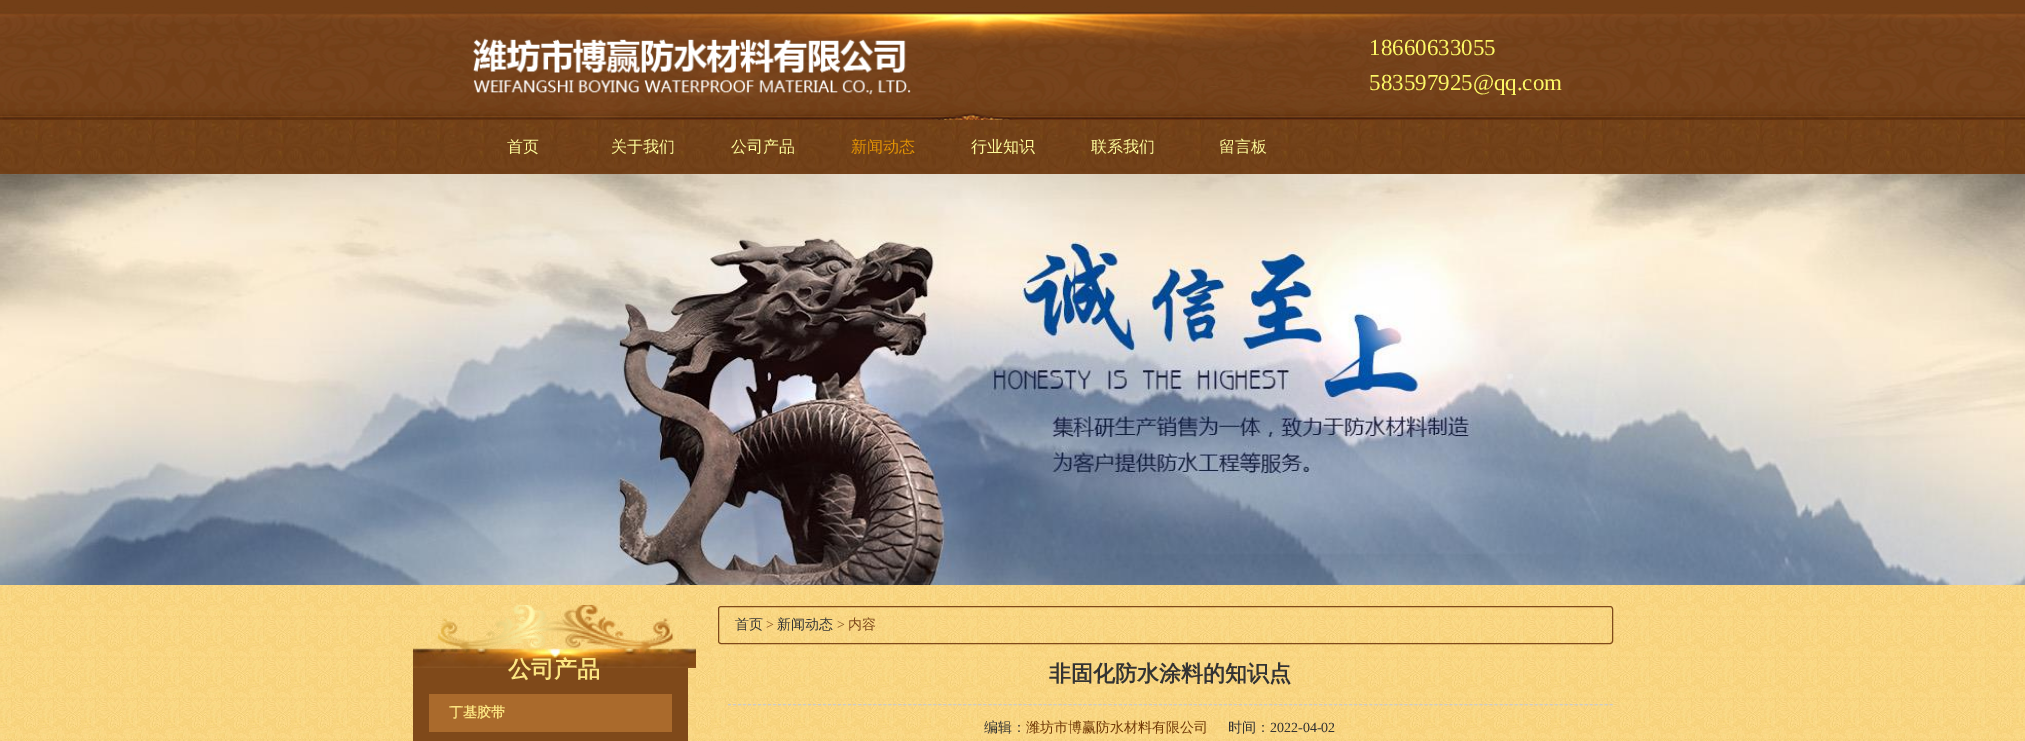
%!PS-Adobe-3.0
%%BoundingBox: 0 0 2025 741
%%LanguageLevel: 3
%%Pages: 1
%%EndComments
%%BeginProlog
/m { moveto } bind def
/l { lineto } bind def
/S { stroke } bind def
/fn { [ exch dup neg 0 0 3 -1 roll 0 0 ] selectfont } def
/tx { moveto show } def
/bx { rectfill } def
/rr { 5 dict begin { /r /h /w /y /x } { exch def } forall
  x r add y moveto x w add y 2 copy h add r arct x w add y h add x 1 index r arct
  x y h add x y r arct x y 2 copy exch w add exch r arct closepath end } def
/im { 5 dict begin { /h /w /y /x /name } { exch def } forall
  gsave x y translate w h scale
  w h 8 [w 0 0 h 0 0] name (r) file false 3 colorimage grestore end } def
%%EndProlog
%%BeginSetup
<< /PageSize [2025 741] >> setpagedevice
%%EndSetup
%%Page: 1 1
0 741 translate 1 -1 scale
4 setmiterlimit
1 setgray
0 0 2025 741 bx
(image0.raw) 0 585 2025 156 im
(image1.raw) 0 0 2025 120 im
(image2.raw) 473 38 438 57 im
/LiberationSerif-Regular 23 fn
0.988 0.973 0.4 setrgbcolor
(18660633055) 1369 55 tx
(583597925@qq.com) 1369 90 tx
(image3.raw) 0 120 2025 54 im
/WenQuanYiZenHei-Medium 16 fn
0.992 0.984 0.604 setrgbcolor
(首页) 507 152 tx
(关于我们) 611 152 tx
(公司产品) 731 152 tx
0.886 0.576 0.012 setrgbcolor
(新闻动态) 851 152 tx
0.992 0.984 0.604 setrgbcolor
(行业知识) 971 152 tx
(联系我们) 1091 152 tx
(留言板) 1219 152 tx
(image4.raw) 0 174 2025 411 im
(image5.raw) 413 605 283 63 im
0.498 0.286 0.102 setrgbcolor
413 668 275 73 bx
/WenQuanYiZenHei-Bold 23 fn
0.984 0.898 0.506 setrgbcolor
(公司产品) 508 677 tx
0.667 0.416 0.173 setrgbcolor
429 694 243 38 bx
/WenQuanYiZenHei-Bold 14 fn
0.984 0.898 0.506 setrgbcolor
(丁基胶带) 449 717 tx
0.498 0.286 0.102 setrgbcolor
718.5 606.5 894 37 2.5 rr S
/WenQuanYiZenHei-Medium 14 fn
0.2 setgray
(首页) 735 629 tx
/LiberationSerif-Regular 14 fn
0.498 0.286 0.102 setrgbcolor
(>) 766 629 tx
/WenQuanYiZenHei-Medium 14 fn
0.2 setgray
(新闻动态) 777 629 tx
/LiberationSerif-Regular 14 fn
0.498 0.286 0.102 setrgbcolor
(>) 837 629 tx
/WenQuanYiZenHei-Medium 14 fn
(内容) 848 629 tx
0.8 setgray
[3 2.01] 0 setdash
728 704.5 m 1613 704.5 l S
/WenQuanYiZenHei-Bold 22 fn
0.2 setgray
(非固化防水涂料的知识点) 1049 681 tx
/WenQuanYiZenHei-Medium 14 fn
(编辑：) 984 732 tx
0.443 0.224 0.024 setrgbcolor
(潍坊市博赢防水材料有限公司) 1026 732 tx
0.2 setgray
(时间：) 1228 732 tx
/LiberationSerif-Regular 14 fn
(2022-04-02) 1270 732 tx
showpage
%%EOF
